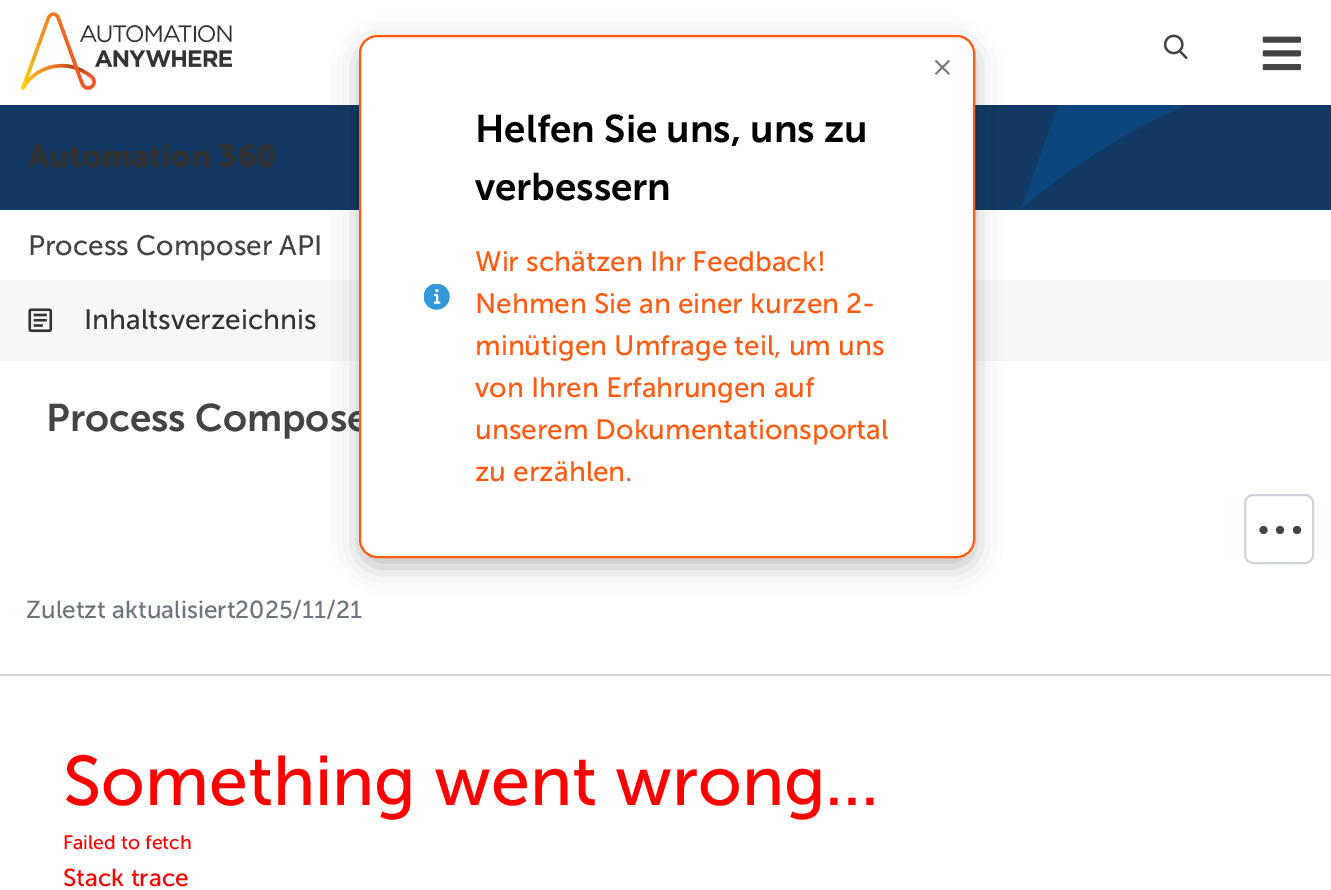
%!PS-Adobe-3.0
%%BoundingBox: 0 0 1331 890
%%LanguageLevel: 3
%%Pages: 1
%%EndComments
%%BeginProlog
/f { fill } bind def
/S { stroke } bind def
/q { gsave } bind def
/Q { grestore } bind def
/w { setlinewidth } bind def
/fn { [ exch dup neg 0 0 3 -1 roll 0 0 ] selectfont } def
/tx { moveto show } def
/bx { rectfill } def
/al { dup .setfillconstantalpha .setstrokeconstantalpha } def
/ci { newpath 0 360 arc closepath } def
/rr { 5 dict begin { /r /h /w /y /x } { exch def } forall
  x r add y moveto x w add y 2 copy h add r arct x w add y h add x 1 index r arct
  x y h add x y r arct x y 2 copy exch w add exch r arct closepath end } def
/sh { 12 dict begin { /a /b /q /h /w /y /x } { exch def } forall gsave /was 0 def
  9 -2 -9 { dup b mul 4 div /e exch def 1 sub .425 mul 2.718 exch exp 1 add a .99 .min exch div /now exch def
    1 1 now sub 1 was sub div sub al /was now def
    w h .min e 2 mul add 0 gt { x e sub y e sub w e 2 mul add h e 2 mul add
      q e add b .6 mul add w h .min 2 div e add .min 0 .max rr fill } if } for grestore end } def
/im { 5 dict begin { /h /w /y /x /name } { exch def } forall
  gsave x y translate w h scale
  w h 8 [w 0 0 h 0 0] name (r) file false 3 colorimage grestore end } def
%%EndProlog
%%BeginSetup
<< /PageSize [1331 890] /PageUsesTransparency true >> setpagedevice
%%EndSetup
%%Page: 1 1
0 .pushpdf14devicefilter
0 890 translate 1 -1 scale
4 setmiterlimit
1 setgray
0 0 1331 890 bx
(image5.raw) 0 105 1331 105 im
0.969 setgray
0 280 1331 81 bx
0 setgray
359 44 616 523 18 13 0.25 sh
/MuseoSans-SemiBold 38.5 fn
0.267 setgray
(Process Compose) 46 431 tx
1 setgray
360 36 614 521 17 rr q f Q
1 0.353 0.063 setrgbcolor
2 w
S
(image0.raw) 934 59 16 16 im
(image1.raw) 424 284 26 26 im
0 setgray
(Helfen Sie uns, uns zu) 475 142 tx
(verbessern) 475 200 tx
/MuseoSans-Regular 28 fn
1 0.353 0.063 setrgbcolor
(Wir schätzen Ihr Feedback!) 475 271 tx
(Nehmen Sie an einer kurzen 2-) 475 313 tx
(minütigen Umfrage teil, um uns) 475 355 tx
(von Ihren Erfahrungen auf) 475 397 tx
(unserem Dokumentationsportal) 475 439 tx
(zu erzählen.) 475 481 tx
(image2.raw) 21 12 211 78 im
(image3.raw) 1163 34 25 25 im
(image4.raw) 1262 36 39 35 im
/MuseoSans-Bold 31.5 fn
0.2 setgray
(Automation 360) 28 167 tx
/MuseoSans-Regular 28 fn
0.267 setgray
(Process Composer API) 28 255 tx
(image6.raw) 28 308 25 25 im
0.2 setgray
(Inhaltsverzeichnis) 84 329 tx
0.808 0.831 0.855 setrgbcolor
0 674 1331 2 bx
1245 495 68 68 8 rr S
0.267 setgray
1263.5 530 4 ci f
1280 530 4 ci f
1297 530 4 ci f
/MuseoSans-Regular 24.5 fn
0.424 0.459 0.49 setrgbcolor
(Zuletzt aktualisiert2025/11/21) 26 618 tx
/MuseoSans-Regular 70 fn
1 0 0 setrgbcolor
(Something went wrong...) 63 805 tx
/MuseoSans-Regular 19.5 fn
(Failed to fetch) 63 849 tx
/MuseoSans-Regular 24.5 fn
(Stack trace) 63 886 tx
.poppdf14devicefilter showpage
%%EOF
